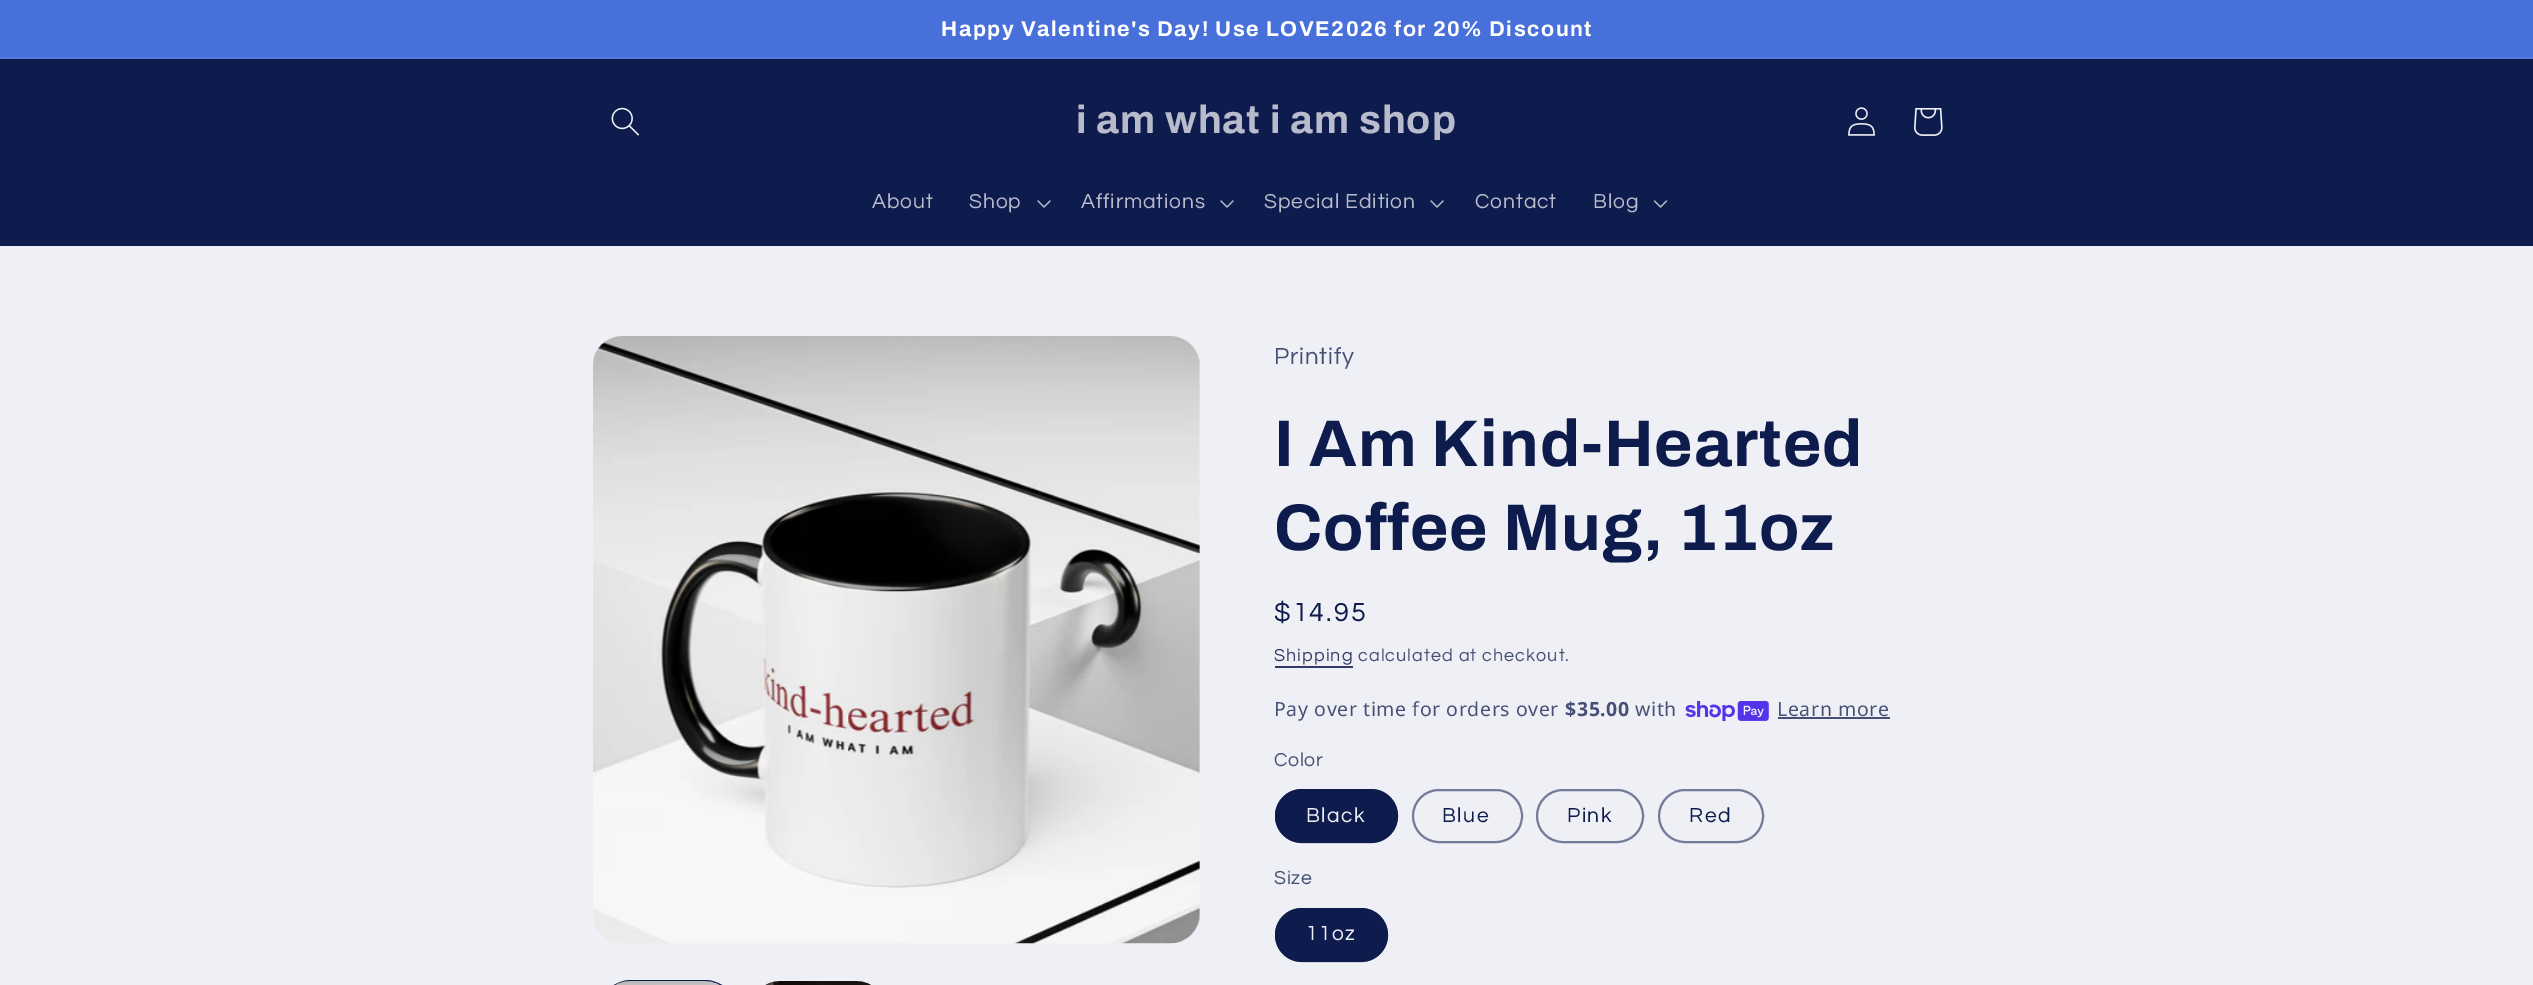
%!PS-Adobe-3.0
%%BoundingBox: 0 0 2533 985
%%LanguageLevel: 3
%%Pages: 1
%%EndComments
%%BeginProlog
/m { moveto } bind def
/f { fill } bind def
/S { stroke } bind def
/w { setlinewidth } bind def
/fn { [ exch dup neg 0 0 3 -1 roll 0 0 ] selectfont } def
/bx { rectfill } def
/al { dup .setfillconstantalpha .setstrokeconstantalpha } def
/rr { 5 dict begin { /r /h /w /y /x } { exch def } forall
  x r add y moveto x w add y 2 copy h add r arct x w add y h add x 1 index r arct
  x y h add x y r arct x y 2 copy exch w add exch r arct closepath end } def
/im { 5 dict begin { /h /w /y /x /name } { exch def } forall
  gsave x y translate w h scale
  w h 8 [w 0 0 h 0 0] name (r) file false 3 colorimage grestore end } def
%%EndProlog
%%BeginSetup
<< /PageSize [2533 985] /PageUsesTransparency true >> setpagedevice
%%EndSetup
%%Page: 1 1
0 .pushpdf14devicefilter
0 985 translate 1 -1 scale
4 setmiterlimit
0.937 0.941 0.961 setrgbcolor
0 0 2533 985 bx
0.278 0.439 0.859 setrgbcolor
0 0 2533 57 bx
0.337 0.482 0.871 setrgbcolor
0 57 2533 2 bx
/Archivo-Bold 21.45 fn
1 setgray
941 36 m 1.5 0 (Happy Valentine's Day! Use LOVE2026 for 20% Discount) ashow
0.055 0.106 0.302 setrgbcolor
0 59 2533 187 bx
(image0.raw) 611 107 28 29 im
/Archivo-Bold 39.5 fn
0.718 0.733 0.796 setrgbcolor
1076 133 m 1 0 (i am what i am shop) ashow
(image1.raw) 1848 107 27 29 im
(image2.raw) 1914 108 29 28 im
/Questrial-Regular 21 fn
872 208 m 0.9 0 (About) ashow
969 208 m 0.9 0 (Shop) ashow
(image3.raw) 1037 200 14 8 im
1081 208 m 0.9 0 (Affirmations) ashow
(image3.raw) 1220 200 14 8 im
1264 208 m 0.9 0 (Special Edition) ashow
(image3.raw) 1430 200 14 8 im
1475 208 m 0.9 0 (Contact) ashow
1593 208 m 0.9 0 (Blog) ashow
(image4.raw) 1653 200 15 8 im
(image5.raw) 593 336 607 608 im
0.055 0.106 0.302 setrgbcolor
2 w
600 981 136 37 31 rr S
(image6.raw) 615 981 105 4 im
(image7.raw) 765 981 106 4 im
/Questrial-Regular 24 fn
0.275 0.314 0.467 setrgbcolor
1274 364 m 0.9 0 (Printify) ashow
/Archivo-Bold 66 fn
0.055 0.106 0.302 setrgbcolor
1274 466 m 1 0 (I Am Kind-Hearted) ashow
1274 550 m 1 0 (Coffee Mug, 11oz) ashow
/Questrial-Regular 27 fn
1274 621 m 2 0 ($14.95) ashow
/Questrial-Regular 18 fn
0.188 0.231 0.4 setrgbcolor
1274 661 m 1.05 0 (Shipping) ashow
1275 666 78 2 bx
0.275 0.314 0.467 setrgbcolor
1358 661 m 1.05 0 (calculated at checkout.) ashow
/NotoSans-Regular 19.5 fn
1274 716 m 0.6 0 (Pay over time for orders over) ashow
/NotoSans-Bold 19.5 fn
1565 716 m 0.6 0 ($35.00) ashow
/NotoSans-Regular 19.5 fn
1635 716 m 0.6 0 (with) ashow
(image8.raw) 1685 701 84 21 im
1777 716 m 0.6 0 (Learn more) ashow
1778 717 112 2 bx
/Questrial-Regular 19.5 fn
1274 766 m 0.6 0 (Color) ashow
0.055 0.106 0.302 setrgbcolor
1275 789 123 54 27 rr f
0.55 al
1276 790 121 52 26 rr S
/Questrial-Regular 21 fn
1 al
0.937 0.941 0.961 setrgbcolor
1306 822 m 1.5 0 (Black) ashow
0.451 0.482 0.6 setrgbcolor
1413 790 109 52 26 rr S
0.055 0.106 0.302 setrgbcolor
1442 822 m 1.5 0 (Blue) ashow
0.451 0.482 0.6 setrgbcolor
1537 790 106 52 26 rr S
0.055 0.106 0.302 setrgbcolor
1567 822 m 1.5 0 (Pink) ashow
0.451 0.482 0.6 setrgbcolor
1659 790 104 52 26 rr S
0.055 0.106 0.302 setrgbcolor
1689 822 m 1.5 0 (Red) ashow
/Questrial-Regular 19.5 fn
0.275 0.314 0.467 setrgbcolor
1274 884 m 0.6 0 (Size) ashow
0.055 0.106 0.302 setrgbcolor
1275 908 113 54 27 rr f
0.55 al
1276 909 111 52 26 rr S
/Questrial-Regular 21 fn
1 al
0.937 0.941 0.961 setrgbcolor
1306 940 m 1.5 0 (11oz) ashow
.poppdf14devicefilter showpage
%%EOF
